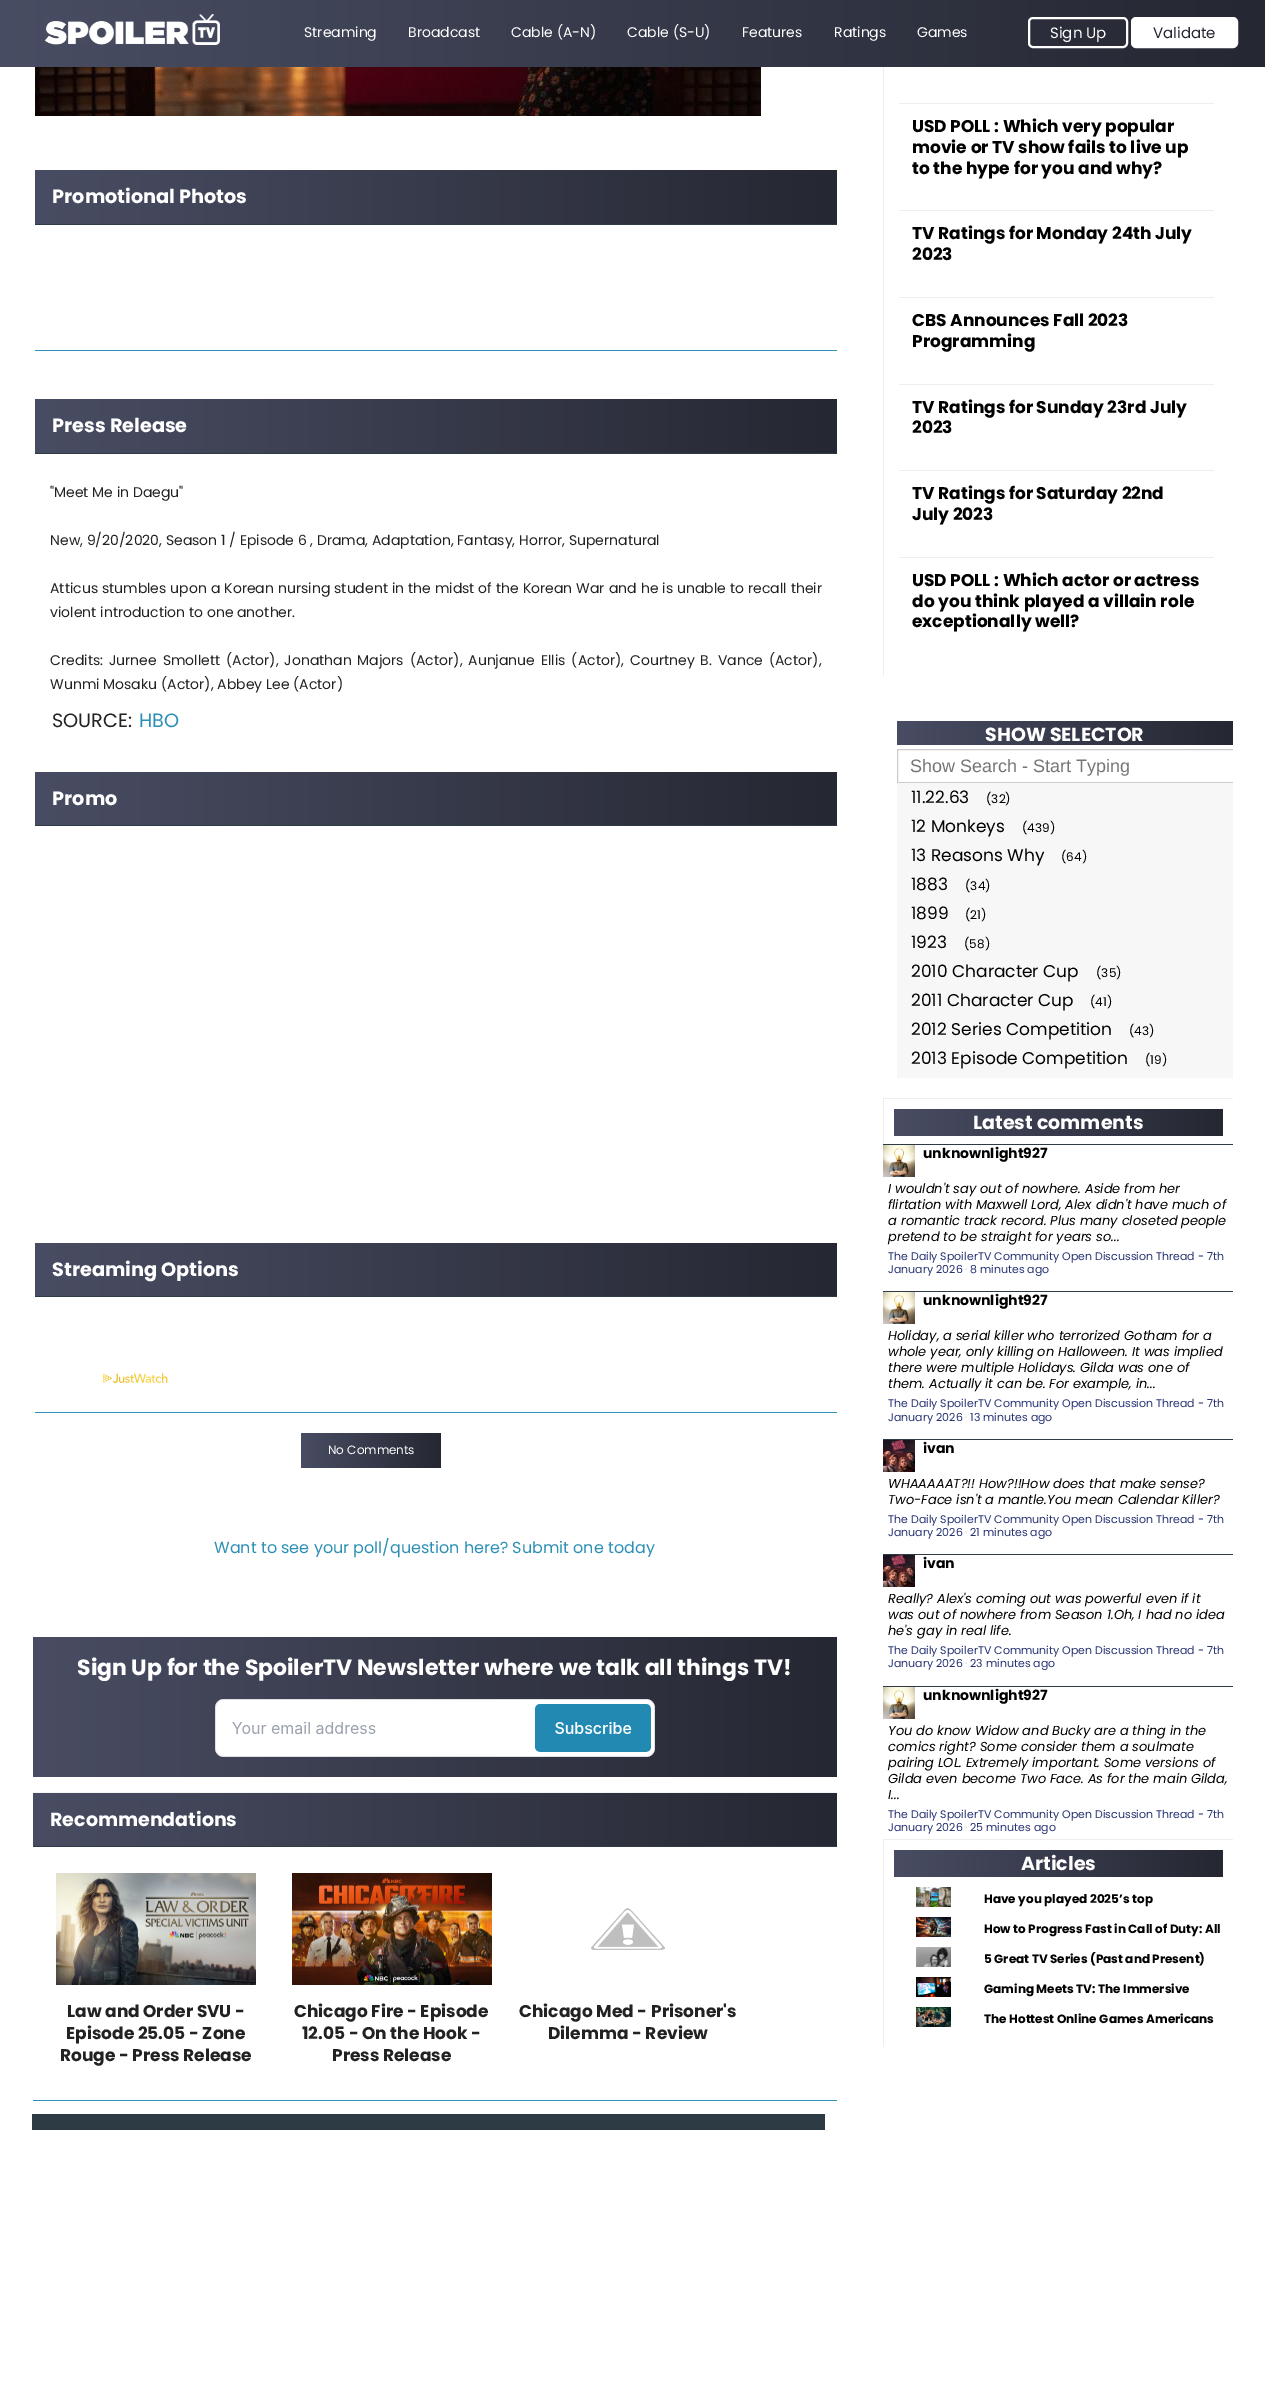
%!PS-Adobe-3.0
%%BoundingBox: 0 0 1265 2392
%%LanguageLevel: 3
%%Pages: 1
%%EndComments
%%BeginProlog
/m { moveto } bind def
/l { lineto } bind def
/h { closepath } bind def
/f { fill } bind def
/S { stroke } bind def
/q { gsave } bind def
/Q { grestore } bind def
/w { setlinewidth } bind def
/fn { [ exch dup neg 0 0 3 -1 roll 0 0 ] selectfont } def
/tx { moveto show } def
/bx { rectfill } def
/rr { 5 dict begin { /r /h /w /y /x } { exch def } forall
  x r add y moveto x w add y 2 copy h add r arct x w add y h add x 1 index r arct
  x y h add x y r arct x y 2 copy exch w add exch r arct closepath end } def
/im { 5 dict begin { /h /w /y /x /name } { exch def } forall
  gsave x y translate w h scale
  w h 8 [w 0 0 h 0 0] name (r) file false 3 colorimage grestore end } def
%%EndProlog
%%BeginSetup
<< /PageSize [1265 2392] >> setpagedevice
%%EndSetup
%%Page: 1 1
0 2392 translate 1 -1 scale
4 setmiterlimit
1 setgray
0 0 1265 2392 bx
q 0 0 m 1265 0 l 1265 67 l 0 67 l h clip newpath
<< /ShadingType 2 /ColorSpace /DeviceRGB /Coords [0 32 1265 32] /Extend [true true] /Function << /FunctionType 2 /Domain [0 1] /C0 [0.286 0.302 0.388] /C1 [0.145 0.153 0.196] /N 1 >> >> shfill Q
(image0.raw) 44 14 176 31 im
/Poppins-Regular 14 fn
(Streaming) 304 37 tx
(Broadcast) 408 37 tx
(Cable \(A-N\)) 511 37 tx
(Cable \(S-U\)) 627 37 tx
(Features) 742 37 tx
(Ratings) 834 37 tx
(Games) 917 37 tx
2 w
1029 18 98 29 4 rr S
/Poppins-Regular 15 fn
(Sign Up) 1050 38 tx
1132 18 105 29 4 rr q f Q
S
0.145 0.153 0.196 setrgbcolor
(Validate) 1153 38 tx
(image1.raw) 35 67 726 49 im
q 35 170 m 837 170 l 837 224 l 35 224 l h clip newpath
<< /ShadingType 2 /ColorSpace /DeviceRGB /Coords [35 197 837 197] /Extend [true true] /Function << /FunctionType 2 /Domain [0 1] /C0 [0.286 0.302 0.388] /C1 [0.145 0.153 0.196] /N 1 >> >> shfill Q
0.173 0.231 0.267 setrgbcolor
35 224 802 1 bx
/Poppins-Bold 19.25 fn
1 setgray
(Promotional Photos) 52 203 tx
0.176 0.565 0.714 setrgbcolor
35 350 802 1 bx
q 35 399 m 837 399 l 837 453 l 35 453 l h clip newpath
<< /ShadingType 2 /ColorSpace /DeviceRGB /Coords [35 426 837 426] /Extend [true true] /Function << /FunctionType 2 /Domain [0 1] /C0 [0.286 0.302 0.388] /C1 [0.145 0.153 0.196] /N 1 >> >> shfill Q
0.173 0.231 0.267 setrgbcolor
35 453 802 1 bx
1 setgray
(Press Release) 52 432 tx
/Poppins-Regular 14 fn
0.133 setgray
("Meet Me in Daegu") 50 497 tx
(New, 9/20/2020, Season 1 / Episode 6 , Drama, Adaptation, Fantasy, Horror, Supernatural) 50 545 tx
50 593 m 0.25 0 32 (Atticus stumbles upon a Korean nursing student in the midst of the Korean War and he is unable to recall their) widthshow
(violent introduction to one another.) 50 617 tx
50 665 m 2.1 0 32 (Credits: Jurnee Smollett \(Actor\), Jonathan Majors \(Actor\), Aunjanue Ellis \(Actor\), Courtney B. Vance \(Actor\),) widthshow
(Wunmi Mosaku \(Actor\), Abbey Lee \(Actor\)) 50 689 tx
/Poppins-Regular 19.25 fn
(SOURCE:) 52 727 tx
0.176 0.565 0.714 setrgbcolor
(HBO) 139 727 tx
q 35 772 m 837 772 l 837 825 l 35 825 l h clip newpath
<< /ShadingType 2 /ColorSpace /DeviceRGB /Coords [35 799 837 799] /Extend [true true] /Function << /FunctionType 2 /Domain [0 1] /C0 [0.286 0.302 0.388] /C1 [0.145 0.153 0.196] /N 1 >> >> shfill Q
0.173 0.231 0.267 setrgbcolor
35 825 802 1 bx
/Poppins-Bold 19.25 fn
1 setgray
(Promo) 52 805 tx
q 35 1243 m 837 1243 l 837 1296 l 35 1296 l h clip newpath
<< /ShadingType 2 /ColorSpace /DeviceRGB /Coords [35 1270 837 1270] /Extend [true true] /Function << /FunctionType 2 /Domain [0 1] /C0 [0.286 0.302 0.388] /C1 [0.145 0.153 0.196] /N 1 >> >> shfill Q
0.173 0.231 0.267 setrgbcolor
35 1296 802 1 bx
1 setgray
(Streaming Options) 52 1276 tx
(image2.raw) 103 1373 65 10 im
0.176 0.565 0.714 setrgbcolor
35 1412 802 1 bx
q 301 1433 m 441 1433 l 441 1468 l 301 1468 l h clip newpath
<< /ShadingType 2 /ColorSpace /DeviceRGB /Coords [301 1451 441 1451] /Extend [true true] /Function << /FunctionType 2 /Domain [0 1] /C0 [0.286 0.302 0.388] /C1 [0.145 0.153 0.196] /N 1 >> >> shfill Q
/Poppins-Regular 12 fn
1 setgray
(No Comments) 328 1454 tx
/Poppins-Regular 16 fn
0.176 0.565 0.714 setrgbcolor
(Want to see your poll/question here? Submit one today) 214 1553 tx
q 33 1637 m 837 1637 l 837 1777 l 33 1777 l h clip newpath
<< /ShadingType 2 /ColorSpace /DeviceRGB /Coords [33 1707 837 1707] /Extend [true true] /Function << /FunctionType 2 /Domain [0 1] /C0 [0.286 0.302 0.388] /C1 [0.145 0.153 0.196] /N 1 >> >> shfill Q
/Poppins-Bold 22 fn
1 setgray
(Sign Up for the SpoilerTV Newsletter where we talk all things TV!) 77 1675 tx
(image3.raw) 215 1699 440 58 im
0.961 setgray
33 1792 804 1 bx
q 33 1793 m 837 1793 l 837 1846 l 33 1846 l h clip newpath
<< /ShadingType 2 /ColorSpace /DeviceRGB /Coords [33 1820 837 1820] /Extend [true true] /Function << /FunctionType 2 /Domain [0 1] /C0 [0.286 0.302 0.388] /C1 [0.145 0.153 0.196] /N 1 >> >> shfill Q
0.173 0.231 0.267 setrgbcolor
33 1846 804 1 bx
/Poppins-Bold 19 fn
1 setgray
(Recommendations) 50 1826 tx
(image4.raw) 56 1873 200 112 im
/Poppins-Bold 17 fn
0.133 setgray
(Law and Order SVU -) 67 2017 tx
(Episode 25.05 - Zone) 66 2039 tx
(Rouge - Press Release) 60 2061 tx
(image5.raw) 292 1873 200 112 im
(Chicago Fire - Episode) 294 2017 tx
(12.05 - On the Hook -) 302 2039 tx
(Press Release) 332 2061 tx
(image6.raw) 591 1908 74 42 im
(Chicago Med - Prisoner's) 519 2017 tx
(Dilemma - Review) 548 2039 tx
0.176 0.565 0.714 setrgbcolor
33 2100 804 1 bx
0.173 0.231 0.267 setrgbcolor
32 2114 793 16 bx
0.933 setgray
883 67 1 609 bx
899 103 315 1 bx
0 setgray
(USD POLL : Which very popular) 912 132 tx
(movie or TV show fails to live up) 912 153 tx
(to the hype for you and why?) 912 174 tx
0.933 setgray
899 210 315 1 bx
0 setgray
(TV Ratings for Monday 24th July) 912 239 tx
(2023) 912 260 tx
0.933 setgray
899 297 315 1 bx
0 setgray
(CBS Announces Fall 2023) 912 326 tx
(Programming) 912 347 tx
0.933 setgray
899 384 315 1 bx
0 setgray
(TV Ratings for Sunday 23rd July) 912 413 tx
(2023) 912 433 tx
0.933 setgray
899 470 315 1 bx
0 setgray
(TV Ratings for Saturday 22nd) 912 499 tx
(July 2023) 912 520 tx
0.933 setgray
899 557 315 1 bx
0 setgray
(USD POLL : Which actor or actress) 912 586 tx
(do you think played a villain role) 912 607 tx
(exceptionally well?) 912 627 tx
q 897 721 m 1233 721 l 1233 745 l 897 745 l h clip newpath
<< /ShadingType 2 /ColorSpace /DeviceRGB /Coords [897 733 1233 733] /Extend [true true] /Function << /FunctionType 2 /Domain [0 1] /C0 [0.286 0.302 0.388] /C1 [0.145 0.153 0.196] /N 1 >> >> shfill Q
/Poppins-Bold 19 fn
1 setgray
(SHOW SELECTOR) 985 741 tx
q
883 745 350 353 rectclip
0.8 setgray
1 w
897.5 749.5 344 33 rectstroke
Q
/LiberationSans-Regular 18 fn
0.459 setgray
(Show Search - Start Typing) 910 772 tx
0.969 setgray
897 783 336 295 bx
/Poppins-Regular 17 fn
0 setgray
(11.22.63) 911 803 tx
/Poppins-Regular 12 fn
(\(32\)) 986 803 tx
/Poppins-Regular 17 fn
(12 Monkeys) 911 832 tx
/Poppins-Regular 12 fn
(\(439\)) 1022 832 tx
/Poppins-Regular 17 fn
(13 Reasons Why) 911 861 tx
/Poppins-Regular 12 fn
(\(64\)) 1061 861 tx
/Poppins-Regular 17 fn
(1883) 911 890 tx
/Poppins-Regular 12 fn
(\(34\)) 965 890 tx
/Poppins-Regular 17 fn
(1899) 911 919 tx
/Poppins-Regular 12 fn
(\(21\)) 965 919 tx
/Poppins-Regular 17 fn
(1923) 911 948 tx
/Poppins-Regular 12 fn
(\(58\)) 964 948 tx
/Poppins-Regular 17 fn
(2010 Character Cup) 911 977 tx
/Poppins-Regular 12 fn
(\(35\)) 1096 977 tx
/Poppins-Regular 17 fn
(2011 Character Cup) 911 1006 tx
/Poppins-Regular 12 fn
(\(41\)) 1090 1006 tx
/Poppins-Regular 17 fn
(2012 Series Competition) 911 1035 tx
/Poppins-Regular 12 fn
(\(43\)) 1129 1035 tx
/Poppins-Regular 17 fn
(2013 Episode Competition) 911 1064 tx
/Poppins-Regular 12 fn
(\(19\)) 1145 1064 tx
0.933 setgray
883 1098 350 1 bx
883 1098 1 48 bx
q 894 1109 m 1223 1109 l 1223 1136 l 894 1136 l h clip newpath
<< /ShadingType 2 /ColorSpace /DeviceRGB /Coords [894 1123 1223 1123] /Extend [true true] /Function << /FunctionType 2 /Domain [0 1] /C0 [0.286 0.302 0.388] /C1 [0.145 0.153 0.196] /N 1 >> >> shfill Q
/Poppins-Bold 19 fn
1 setgray
(Latest comments) 973 1129 tx
0.173 0.231 0.267 setrgbcolor
883 1144 350 1 bx
(image7.raw) 883 1145 32 32 im
/Poppins-Bold 14 fn
0 setgray
(unknownlight927) 923 1158 tx
/Poppins-Italic 13 fn
(I wouldn't say out of nowhere. Aside from her) 888 1193 tx
(flirtation with Maxwell Lord, Alex didn't have much of) 888 1209 tx
(a romantic track record. Plus many closeted people) 888 1225 tx
(pretend to be straight for years so...) 888 1241 tx
/Poppins-Regular 11 fn
0.153 0.2 0.451 setrgbcolor
(The Daily SpoilerTV Community Open Discussion Thread - 7th) 888 1260 tx
(January 2026) 888 1273 tx
0.827 setgray
(·) 965 1273 tx
0.153 0.2 0.451 setrgbcolor
(8 minutes ago) 970 1273 tx
0.173 0.231 0.267 setrgbcolor
883 1291 350 1 bx
(image7.raw) 883 1292 32 32 im
/Poppins-Bold 14 fn
0 setgray
(unknownlight927) 923 1305 tx
/Poppins-Italic 13 fn
(Holiday, a serial killer who terrorized Gotham for a) 888 1340 tx
(whole year, only killing on Halloween. It was implied) 888 1356 tx
(there were multiple Holidays. Gilda was one of) 888 1372 tx
(them. Actually it can be. For example, in...) 888 1388 tx
/Poppins-Regular 11 fn
0.153 0.2 0.451 setrgbcolor
(The Daily SpoilerTV Community Open Discussion Thread - 7th) 888 1407 tx
(January 2026) 888 1421 tx
0.827 setgray
(·) 965 1421 tx
0.153 0.2 0.451 setrgbcolor
(13 minutes ago) 970 1421 tx
0.173 0.231 0.267 setrgbcolor
883 1439 350 1 bx
(image8.raw) 883 1440 32 32 im
/Poppins-Bold 14 fn
0 setgray
(ivan) 923 1453 tx
/Poppins-Italic 13 fn
(WHAAAAAT?!! How?!!How does that make sense?) 888 1488 tx
(Two-Face isn't a mantle.You mean Calendar Killer?) 888 1504 tx
/Poppins-Regular 11 fn
0.153 0.2 0.451 setrgbcolor
(The Daily SpoilerTV Community Open Discussion Thread - 7th) 888 1523 tx
(January 2026) 888 1536 tx
0.827 setgray
(·) 965 1536 tx
0.153 0.2 0.451 setrgbcolor
(21 minutes ago) 970 1536 tx
0.173 0.231 0.267 setrgbcolor
883 1554 350 1 bx
(image8.raw) 883 1555 32 32 im
/Poppins-Bold 14 fn
0 setgray
(ivan) 923 1568 tx
/Poppins-Italic 13 fn
(Really? Alex's coming out was powerful even if it) 888 1603 tx
(was out of nowhere from Season 1.Oh, I had no idea) 888 1619 tx
(he's gay in real life.) 888 1635 tx
/Poppins-Regular 11 fn
0.153 0.2 0.451 setrgbcolor
(The Daily SpoilerTV Community Open Discussion Thread - 7th) 888 1654 tx
(January 2026) 888 1667 tx
0.827 setgray
(·) 965 1667 tx
0.153 0.2 0.451 setrgbcolor
(23 minutes ago) 970 1667 tx
0.173 0.231 0.267 setrgbcolor
883 1686 350 1 bx
(image7.raw) 883 1687 32 32 im
/Poppins-Bold 14 fn
0 setgray
(unknownlight927) 923 1700 tx
/Poppins-Italic 13 fn
(You do know Widow and Bucky are a thing in the) 888 1735 tx
(comics right? Some consider them a soulmate) 888 1751 tx
(pairing LOL. Extremely important. Some versions of) 888 1767 tx
(Gilda even become Two Face. As for the main Gilda,) 888 1783 tx
(I...) 888 1799 tx
/Poppins-Regular 11 fn
0.153 0.2 0.451 setrgbcolor
(The Daily SpoilerTV Community Open Discussion Thread - 7th) 888 1818 tx
(January 2026) 888 1831 tx
0.827 setgray
(·) 965 1831 tx
0.153 0.2 0.451 setrgbcolor
(25 minutes ago) 970 1831 tx
0.933 setgray
883 1839 350 1 bx
883 1839 1 208 bx
q 894 1850 m 1223 1850 l 1223 1877 l 894 1877 l h clip newpath
<< /ShadingType 2 /ColorSpace /DeviceRGB /Coords [894 1864 1223 1864] /Extend [true true] /Function << /FunctionType 2 /Domain [0 1] /C0 [0.286 0.302 0.388] /C1 [0.145 0.153 0.196] /N 1 >> >> shfill Q
/Poppins-Bold 19 fn
1 setgray
(Articles) 1021 1870 tx
(image9.raw) 916 1887 35 20 im
/Poppins-Bold 12 fn
0 setgray
(Have you played 2025’s top) 984 1903 tx
(image10.raw) 916 1917 35 20 im
(How to Progress Fast in Call of Duty: All) 984 1933 tx
(image11.raw) 916 1947 35 20 im
(5 Great TV Series \(Past and Present\)) 984 1963 tx
(image12.raw) 916 1977 35 20 im
(Gaming Meets TV: The Immersive) 984 1993 tx
(image13.raw) 916 2007 35 20 im
(The Hottest Online Games Americans) 984 2023 tx
showpage
%%EOF
